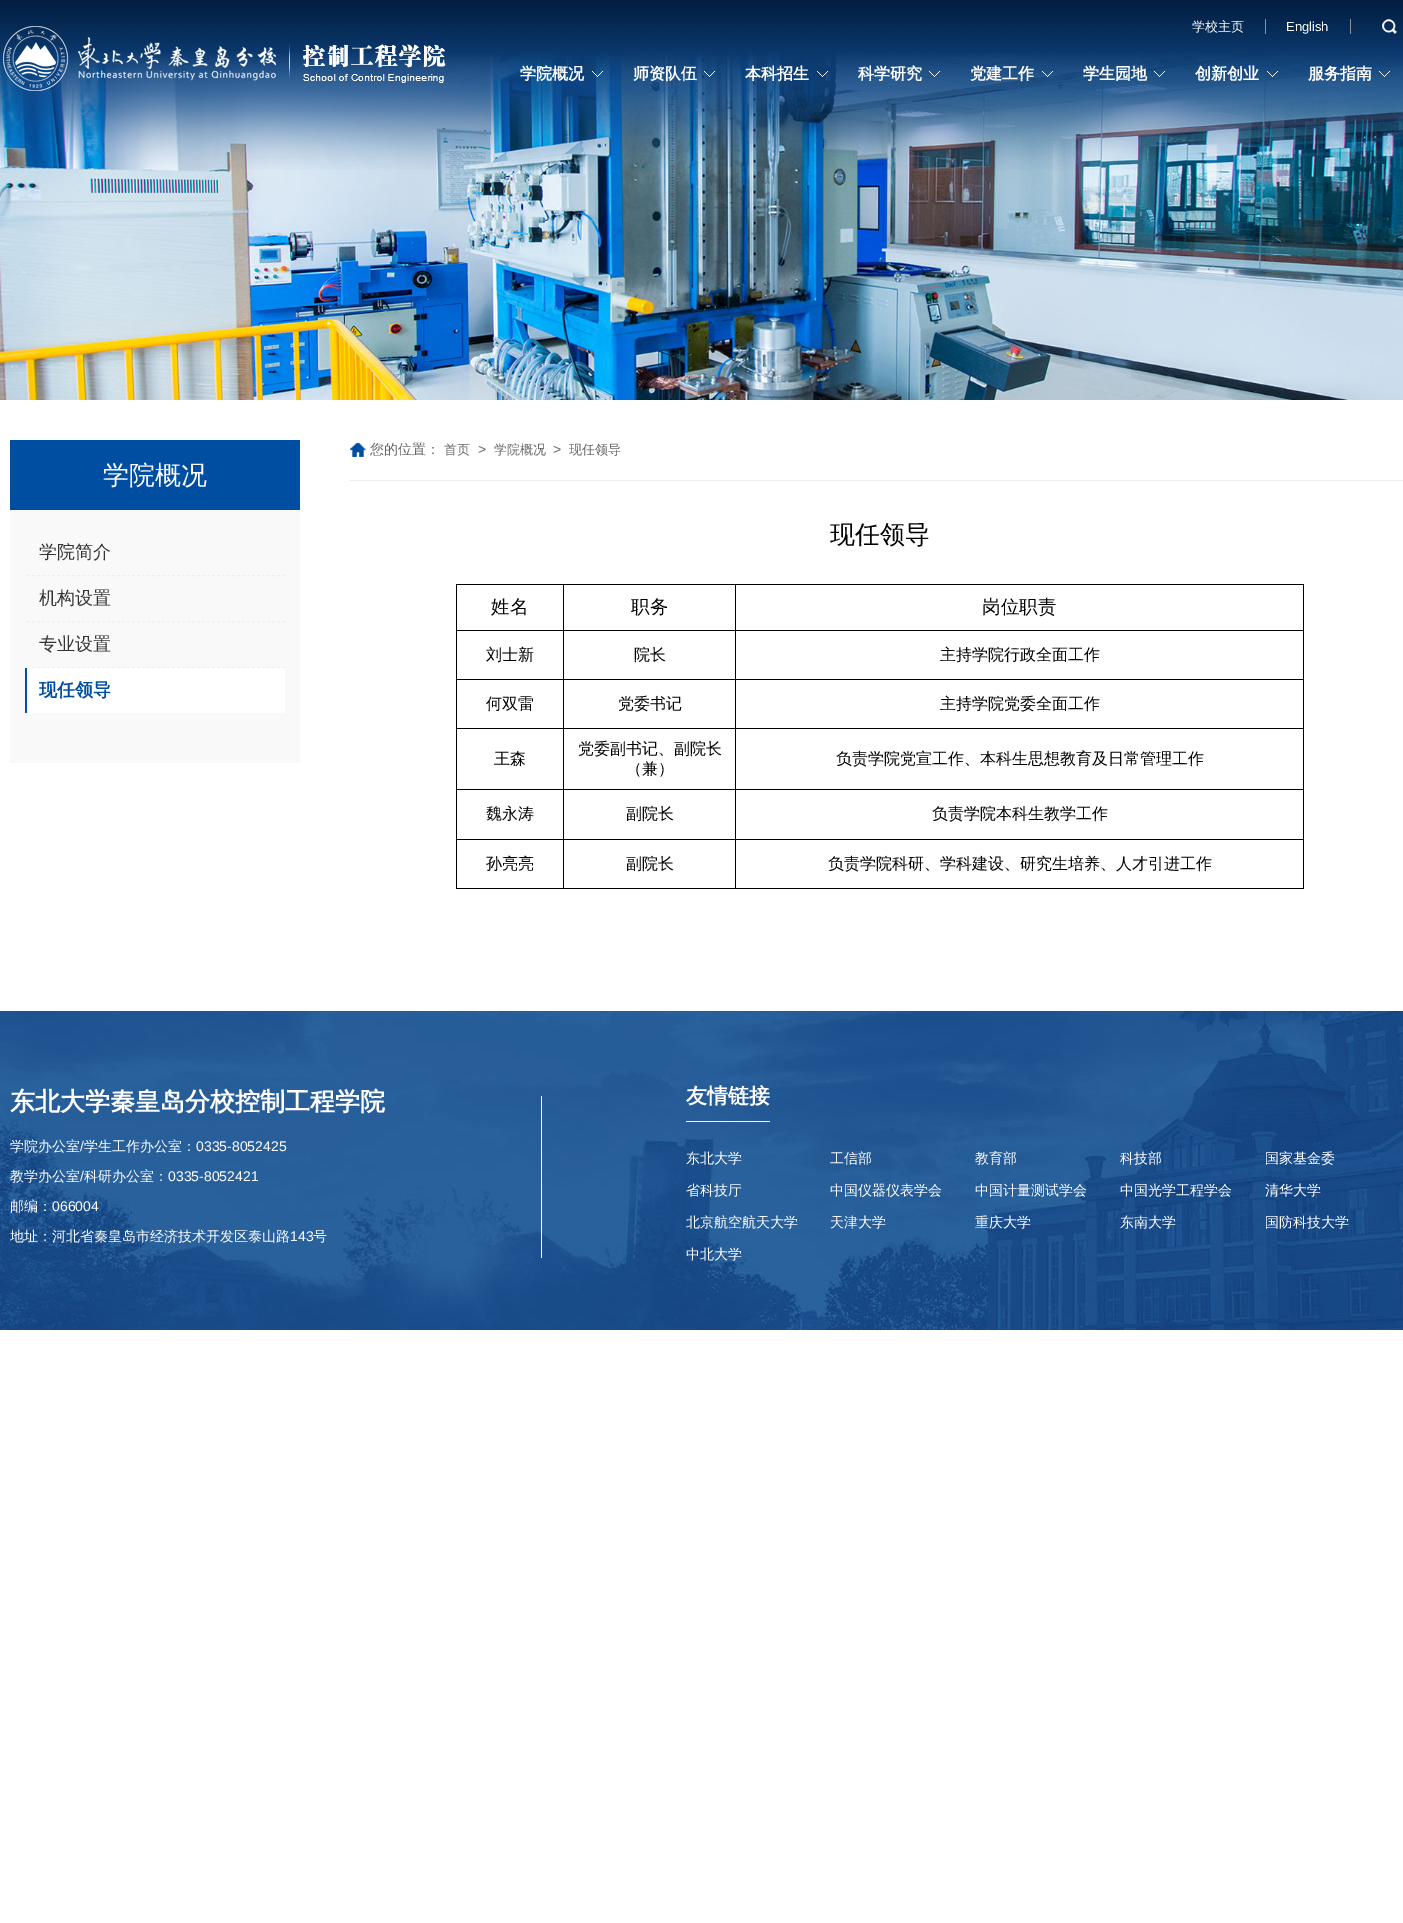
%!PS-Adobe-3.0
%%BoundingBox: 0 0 1403 1923
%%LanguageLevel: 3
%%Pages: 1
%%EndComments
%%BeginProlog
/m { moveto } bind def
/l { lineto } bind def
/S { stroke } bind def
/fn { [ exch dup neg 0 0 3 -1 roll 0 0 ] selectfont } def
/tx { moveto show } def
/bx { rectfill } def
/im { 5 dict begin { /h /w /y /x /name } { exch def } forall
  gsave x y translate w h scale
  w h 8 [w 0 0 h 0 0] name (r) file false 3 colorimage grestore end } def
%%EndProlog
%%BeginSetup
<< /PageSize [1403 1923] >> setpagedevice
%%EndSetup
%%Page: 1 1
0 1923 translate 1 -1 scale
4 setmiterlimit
1 setgray
0 0 1403 1923 bx
(image11.raw) 0 52 1403 348 im
(image0.raw) 0 0 1403 170 im
(image1.raw) 3 26 443 65 im
/WenQuanYiZenHei-Medium 13 fn
(学校主页) 1192 31 tx
0.541 0.565 0.588 setrgbcolor
1265 19 1 15 bx
/LiberationSans-Regular 13 fn
1 setgray
(English) 1286 31 tx
0.541 0.565 0.588 setrgbcolor
1350 19 1 15 bx
(image2.raw) 1382 19 15 15 im
(image3.raw) 592 71 11 6 im
/WenQuanYiZenHei-Bold 16 fn
1 setgray
(学院概况) 520 79 tx
(image4.raw) 704 71 11 6 im
(师资队伍) 633 79 tx
(image5.raw) 817 71 11 6 im
(本科招生) 745 79 tx
(image6.raw) 929 71 11 6 im
(科学研究) 858 79 tx
(image7.raw) 1042 71 11 6 im
(党建工作) 970 79 tx
(image8.raw) 1154 71 11 6 im
(学生园地) 1083 79 tx
(image9.raw) 1267 71 11 6 im
(创新创业) 1195 79 tx
(image10.raw) 1379 71 11 6 im
(服务指南) 1308 79 tx
0 0.306 0.631 setrgbcolor
10 440 290 70 bx
/WenQuanYiZenHei-Medium 26 fn
1 setgray
(学院概况) 103 484 tx
0.976 setgray
10 510 290 253 bx
0.933 setgray
[3 2] 0 setdash
27 575.5 m 285 575.5 l S
/WenQuanYiZenHei-Medium 18 fn
0.2 setgray
(学院简介) 39 558 tx
0.933 setgray
27 621.5 m 285 621.5 l S
0.2 setgray
(机构设置) 39 604 tx
0.933 setgray
27 667.5 m 285 667.5 l S
0.2 setgray
(专业设置) 39 650 tx
1 setgray
27 668 258 45 bx
0 0.306 0.631 setrgbcolor
25 668 2 45 bx
/WenQuanYiZenHei-Bold 18 fn
(现任领导) 39 696 tx
0.933 setgray
350 480 1053 1 bx
(image12.raw) 350 443 16 14 im
/WenQuanYiZenHei-Medium 14 fn
0.4 setgray
(您的位置：) 370 454 tx
/WenQuanYiZenHei-Medium 13 fn
(首页) 444 454 tx
/LiberationSans-Regular 14 fn
(>) 478 454 tx
/WenQuanYiZenHei-Medium 13 fn
(学院概况) 494 454 tx
/LiberationSans-Regular 14 fn
(>) 553 454 tx
/WenQuanYiZenHei-Medium 13 fn
(现任领导) 569 454 tx
/WenQuanYiZenHei-Medium 25 fn
0 setgray
(现任领导) 830 543 tx
735 584 569 1 bx
735 630 569 1 bx
735 679 569 1 bx
735 728 569 1 bx
735 789 569 1 bx
735 839 569 1 bx
1303 839 1 50 bx
735 888 569 1 bx
735 839 1 50 bx
563 839 173 1 bx
735 789 1 51 bx
563 789 173 1 bx
735 728 1 62 bx
563 728 173 1 bx
735 679 1 50 bx
563 679 173 1 bx
735 630 1 50 bx
563 630 173 1 bx
735 584 1 47 bx
563 584 173 1 bx
563 888 173 1 bx
563 839 1 50 bx
456 839 108 1 bx
563 789 1 51 bx
456 789 108 1 bx
563 728 1 62 bx
456 728 108 1 bx
563 679 1 50 bx
456 679 108 1 bx
563 630 1 50 bx
456 630 108 1 bx
563 584 1 47 bx
456 584 108 1 bx
456 888 108 1 bx
456 839 1 50 bx
456 789 1 51 bx
456 728 1 62 bx
456 679 1 50 bx
456 630 1 50 bx
456 584 1 47 bx
/WenQuanYiZenHei-Medium 18.5 fn
(姓名) 491 613 tx
(职务) 631 613 tx
1303 789 1 51 bx
1303 728 1 62 bx
1303 679 1 50 bx
1303 630 1 50 bx
1303 584 1 47 bx
(岗位职责) 982 613 tx
/WenQuanYiZenHei-Medium 16 fn
(刘士新) 486 660 tx
(院长) 634 660 tx
(主持学院行政全面工作) 940 660 tx
(何双雷) 486 709 tx
(党委书记) 618 709 tx
(主持学院党委全面工作) 940 709 tx
(王森) 494 764 tx
(党委副书记、副院长) 578 754 tx
(（兼）) 626 774 tx
(负责学院党宣工作、本科生思想教育及日常管理工作) 836 764 tx
(魏永涛) 486 819 tx
(副院长) 626 819 tx
(负责学院本科生教学工作) 932 819 tx
(孙亮亮) 486 869 tx
(副院长) 626 869 tx
(负责学院科研、学科建设、研究生培养、人才引进工作) 828 869 tx
(image13.raw) 0 1011 1403 319 im
/WenQuanYiZenHei-Bold 25 fn
1 setgray
(东北大学秦皇岛分校控制工程学院) 10 1110 tx
/WenQuanYiZenHei-Medium 14 fn
(学院办公室) 10 1151 tx
/LiberationSans-Regular 14 fn
(/) 80 1151 tx
/WenQuanYiZenHei-Medium 14 fn
(学生工作办公室：) 84 1151 tx
/LiberationSans-Regular 14 fn
(0335-8052425) 196 1151 tx
/WenQuanYiZenHei-Medium 14 fn
(教学办公室) 10 1181 tx
/LiberationSans-Regular 14 fn
(/) 80 1181 tx
/WenQuanYiZenHei-Medium 14 fn
(科研办公室：) 84 1181 tx
/LiberationSans-Regular 14 fn
(0335-8052421) 168 1181 tx
/WenQuanYiZenHei-Medium 14 fn
(邮编：) 10 1211 tx
/LiberationSans-Regular 14 fn
(066004) 52 1211 tx
/WenQuanYiZenHei-Medium 14 fn
(地址：河北省秦皇岛市经济技术开发区泰山路) 10 1241 tx
/LiberationSans-Regular 14 fn
(143) 290 1241 tx
/WenQuanYiZenHei-Medium 14 fn
(号) 313 1241 tx
541 1096 1 162 bx
686 1121 84 1 bx
/WenQuanYiZenHei-Bold 21 fn
(友情链接) 686 1103 tx
/WenQuanYiZenHei-Medium 14 fn
(东北大学) 686 1163 tx
(工信部) 830 1163 tx
(教育部) 975 1163 tx
(科技部) 1120 1163 tx
(国家基金委) 1265 1163 tx
(省科技厅) 686 1195 tx
(中国仪器仪表学会) 830 1195 tx
(中国计量测试学会) 975 1195 tx
(中国光学工程学会) 1120 1195 tx
(清华大学) 1265 1195 tx
(北京航空航天大学) 686 1227 tx
(天津大学) 830 1227 tx
(重庆大学) 975 1227 tx
(东南大学) 1120 1227 tx
(国防科技大学) 1265 1227 tx
(中北大学) 686 1259 tx
showpage
%%EOF
